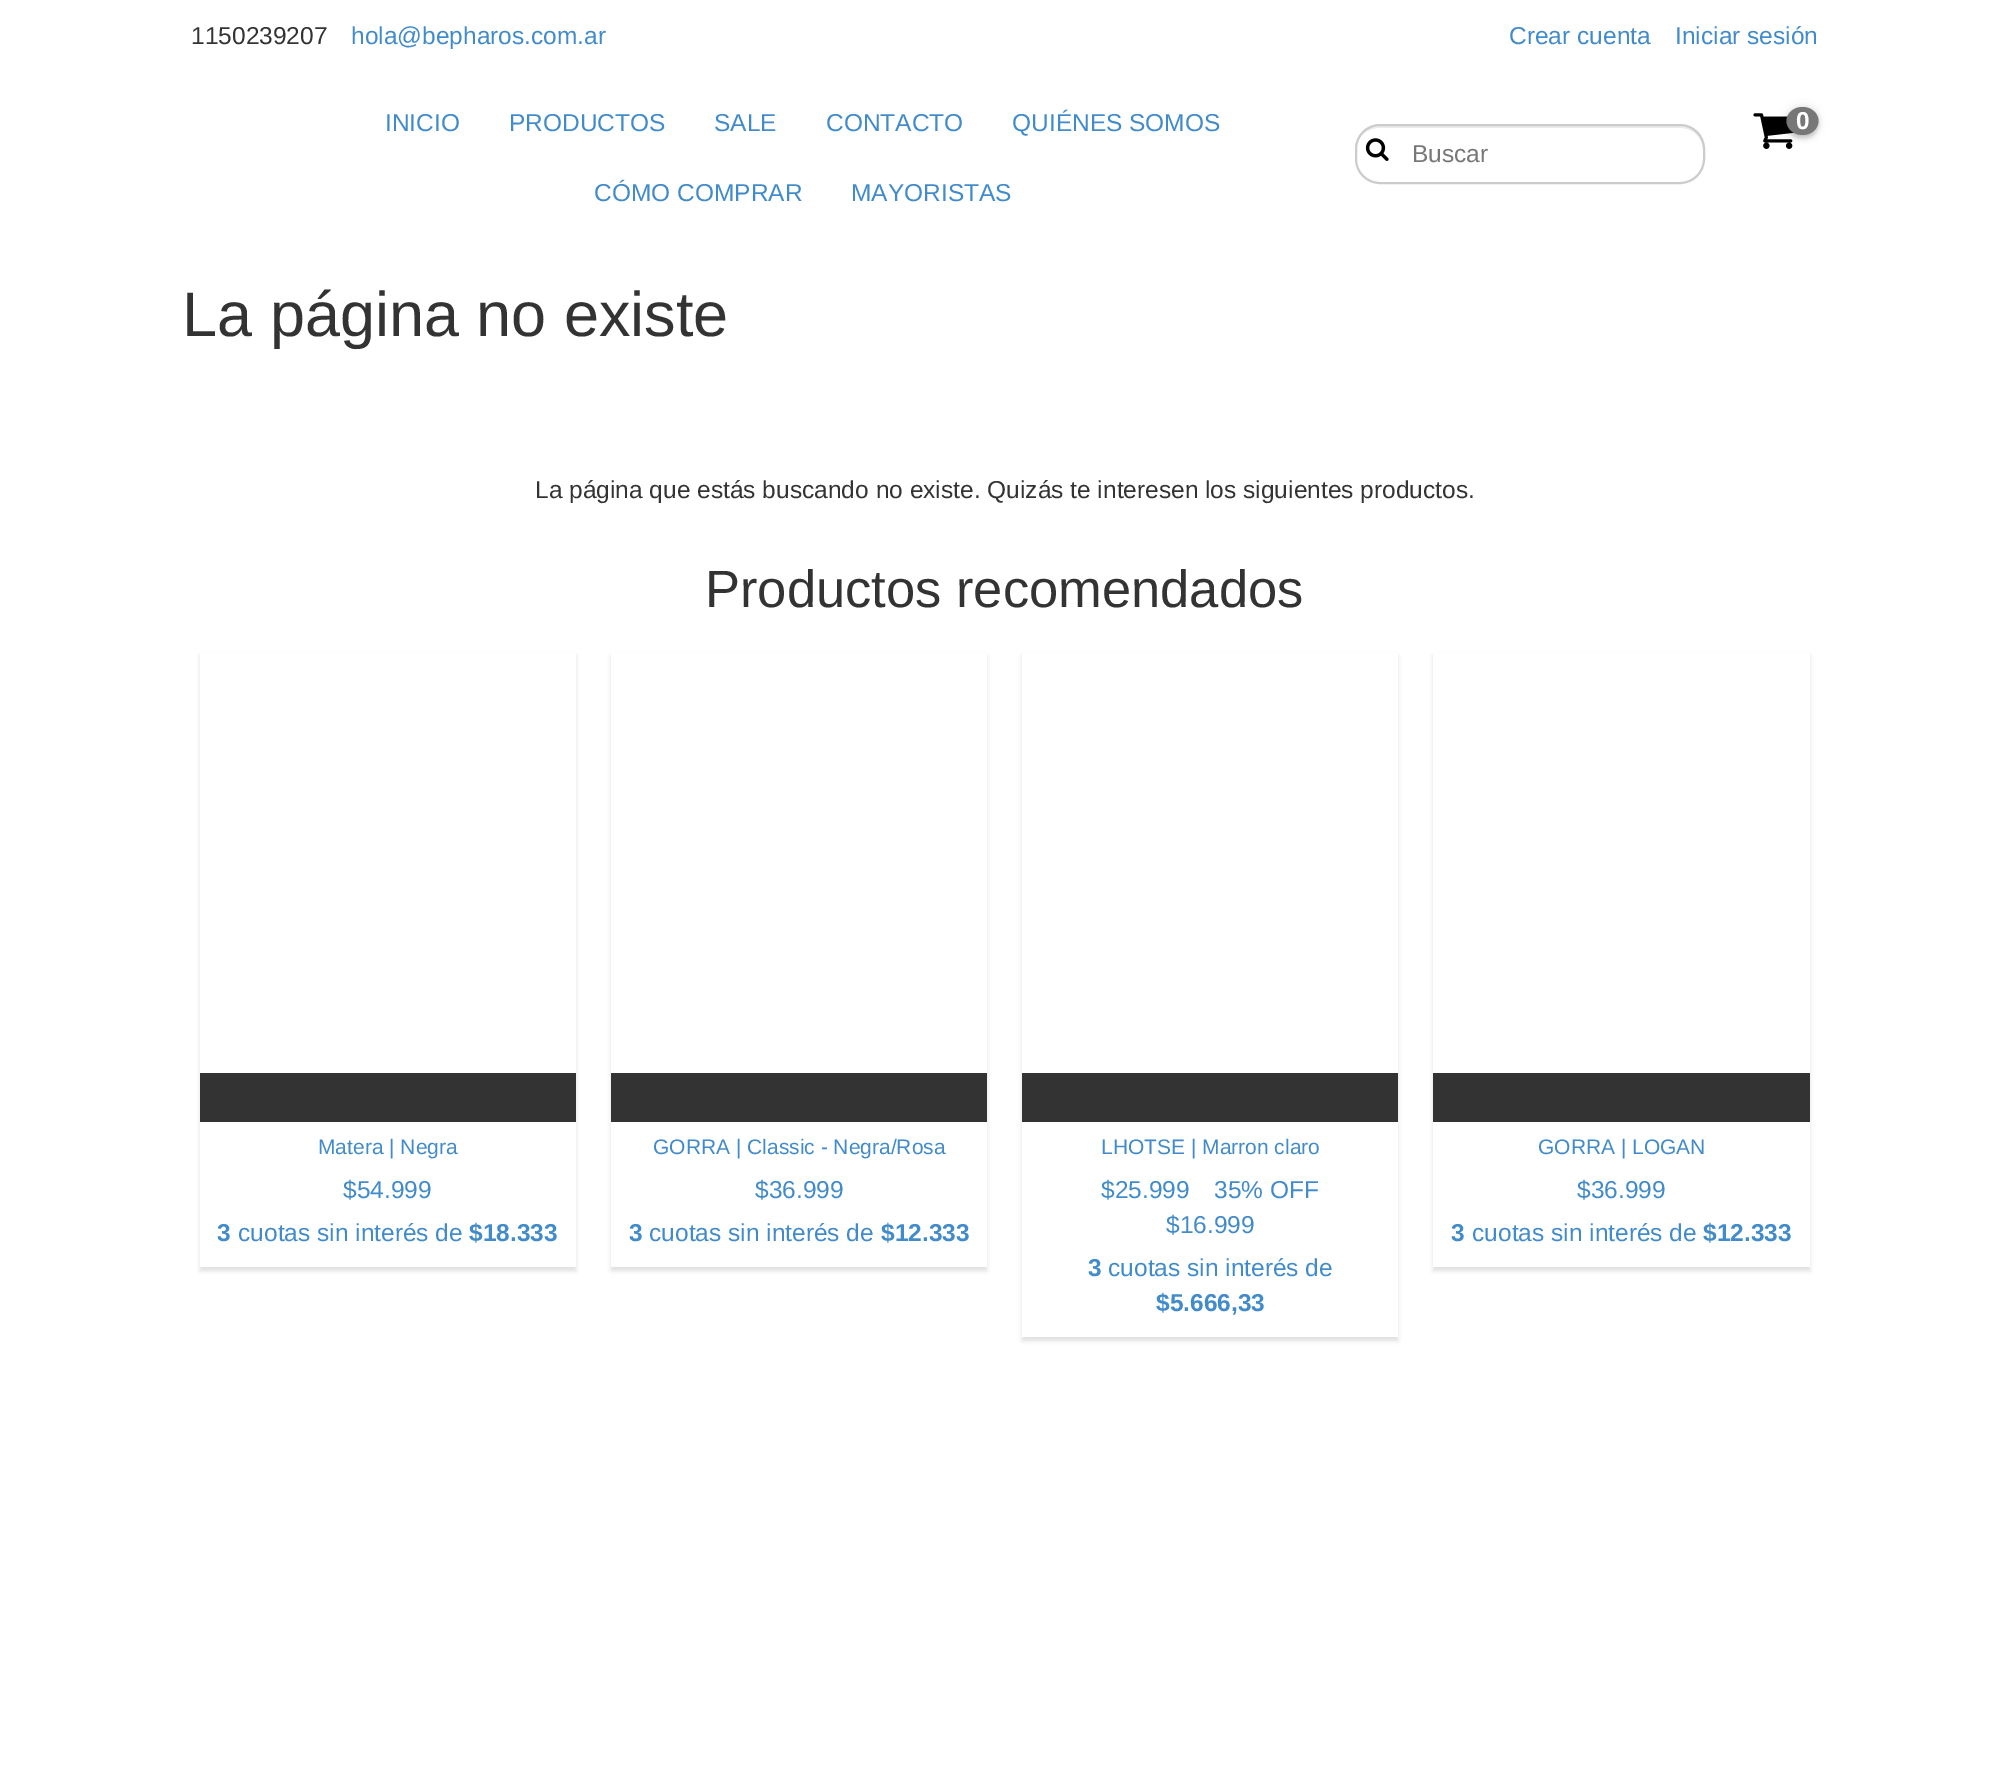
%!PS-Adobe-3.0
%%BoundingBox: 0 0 2009 1777
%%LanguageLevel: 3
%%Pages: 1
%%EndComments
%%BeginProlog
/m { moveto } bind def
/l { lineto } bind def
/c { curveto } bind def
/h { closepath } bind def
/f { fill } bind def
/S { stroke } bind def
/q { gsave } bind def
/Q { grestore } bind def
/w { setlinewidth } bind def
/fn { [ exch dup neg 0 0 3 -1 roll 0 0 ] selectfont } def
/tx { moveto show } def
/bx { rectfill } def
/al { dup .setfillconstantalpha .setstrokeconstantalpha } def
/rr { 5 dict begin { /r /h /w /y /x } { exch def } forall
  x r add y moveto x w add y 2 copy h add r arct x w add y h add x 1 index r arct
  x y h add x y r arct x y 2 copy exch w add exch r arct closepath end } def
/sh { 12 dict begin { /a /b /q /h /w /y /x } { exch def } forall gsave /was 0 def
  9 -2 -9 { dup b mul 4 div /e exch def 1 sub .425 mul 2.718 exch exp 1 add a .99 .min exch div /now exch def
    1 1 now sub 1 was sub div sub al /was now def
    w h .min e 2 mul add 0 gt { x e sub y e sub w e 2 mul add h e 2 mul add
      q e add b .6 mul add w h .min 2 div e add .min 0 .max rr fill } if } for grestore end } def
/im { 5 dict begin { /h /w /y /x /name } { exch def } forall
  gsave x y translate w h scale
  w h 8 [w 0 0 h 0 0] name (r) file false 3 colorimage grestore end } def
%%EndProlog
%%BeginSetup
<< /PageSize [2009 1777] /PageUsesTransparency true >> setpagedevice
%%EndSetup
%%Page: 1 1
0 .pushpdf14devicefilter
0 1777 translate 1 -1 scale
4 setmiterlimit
1 setgray
0 0 2009 1777 bx
/LiberationSans-Regular 24.5 fn
0.2 setgray
(1150239207) 191 44 tx
0.259 0.545 0.792 setrgbcolor
(hola@bepharos.com.ar) 351 44 tx
(Crear cuenta) 1509 44 tx
(Iniciar sesión) 1675 44 tx
(INICIO) 385 131 tx
(PRODUCTOS) 509 131 tx
(SALE) 714 131 tx
(CONTACTO) 826 131 tx
(QUIÉNES SOMOS) 1012 131 tx
(CÓMO COMPRAR) 594 201 tx
(MAYORISTAS) 851 201 tx
(image0.raw) 1753 113 42 36 im
0 setgray
1787 110 31 28 14 2.5 0.2 sh
1787 107 31 28 14 4.5 0.1 sh
0.467 setgray
1802.5 107 m 1811.5 107 1818.5 113.5 1818.5 121 c 1818.5 128.5 1811.5 135 1802.5 135 c 1793.5 135 1786.5 128.5 1786.5 121 c 1786.5 113.5 1793.5 107 1802.5 107 c h f
/LiberationSans-Bold 24.5 fn
1 setgray
(0) 1796 129 tx
0.925 setgray
1379 128 m 1680 128 l 1693 128 1703 138 1703 150 c 1703 149 l 1703 136 1693 126 1680 126 c 1379 126 l 1366 126 1356 136 1356 149 c 1356 150 l 1356 138 1366 128 1379 128 c h f
0.8 setgray
2 w
1356 125 348 58 24 rr S
(image1.raw) 1365 138 24 23 im
/LiberationSans-Regular 24.5 fn
0.467 setgray
(Buscar) 1412 162 tx
/LiberationSans-Regular 63 fn
0.2 setgray
(La página no existe) 182 336 tx
/LiberationSans-Regular 24.5 fn
(La página que estás buscando no existe. Quizás te interesen los siguientes productos.) 535 498 tx
/LiberationSans-Regular 52.5 fn
(Productos recomendados) 705 607 tx
q
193 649 m 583 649 l 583 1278 l 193 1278 l h 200 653 m 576 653 l 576 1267 l 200 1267 l h eoclip newpath
0.196 setgray
200 656 376 615 0 2 0.15 sh
Q
1 setgray
575 1122 1 145 bx
0.2 setgray
200 1073 376 49 bx
/LiberationSans-Regular 21 fn
0.259 0.545 0.792 setrgbcolor
(Matera | Negra) 318 1154 tx
/LiberationSans-Regular 24.5 fn
($54.999) 343 1198 tx
/LiberationSans-Bold 24.5 fn
(3) 217 1241 tx
/LiberationSans-Regular 24.5 fn
(cuotas sin interés de) 238 1241 tx
/LiberationSans-Bold 24.5 fn
($18.333) 469 1241 tx
q
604 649 m 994 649 l 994 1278 l 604 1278 l h 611 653 m 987 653 l 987 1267 l 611 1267 l h eoclip newpath
0.196 setgray
611 656 376 615 0 2 0.15 sh
Q
0.2 setgray
611 1073 376 49 bx
/LiberationSans-Regular 21 fn
0.259 0.545 0.792 setrgbcolor
(GORRA | Classic - Negra/Rosa) 653 1154 tx
/LiberationSans-Regular 24.5 fn
($36.999) 755 1198 tx
/LiberationSans-Bold 24.5 fn
(3) 629 1241 tx
/LiberationSans-Regular 24.5 fn
(cuotas sin interés de) 649 1241 tx
/LiberationSans-Bold 24.5 fn
($12.333) 881 1241 tx
q
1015 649 m 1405 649 l 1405 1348 l 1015 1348 l h 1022 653 m 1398 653 l 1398 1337 l 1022 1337 l h eoclip newpath
0.196 setgray
1022 656 376 685 0 2 0.15 sh
Q
0.2 setgray
1022 1073 376 49 bx
/LiberationSans-Regular 21 fn
0.259 0.545 0.792 setrgbcolor
(LHOTSE | Marron claro) 1101 1154 tx
/LiberationSans-Regular 24.5 fn
($25.999) 1101 1198 tx
(35% OFF) 1214 1198 tx
($16.999) 1166 1233 tx
/LiberationSans-Bold 24.5 fn
(3) 1088 1276 tx
/LiberationSans-Regular 24.5 fn
(cuotas sin interés de) 1108 1276 tx
/LiberationSans-Bold 24.5 fn
($5.666,33) 1156 1311 tx
q
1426 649 m 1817 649 l 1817 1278 l 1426 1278 l h 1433 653 m 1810 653 l 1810 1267 l 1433 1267 l h eoclip newpath
0.196 setgray
1433 656 377 615 0 2 0.15 sh
Q
1 setgray
1433 1122 377 145 bx
0.2 setgray
1433 1073 377 49 bx
/LiberationSans-Regular 21 fn
0.259 0.545 0.792 setrgbcolor
(GORRA | LOGAN) 1538 1154 tx
/LiberationSans-Regular 24.5 fn
($36.999) 1577 1198 tx
/LiberationSans-Bold 24.5 fn
(3) 1451 1241 tx
/LiberationSans-Regular 24.5 fn
(cuotas sin interés de) 1472 1241 tx
/LiberationSans-Bold 24.5 fn
($12.333) 1703 1241 tx
.poppdf14devicefilter showpage
%%EOF
